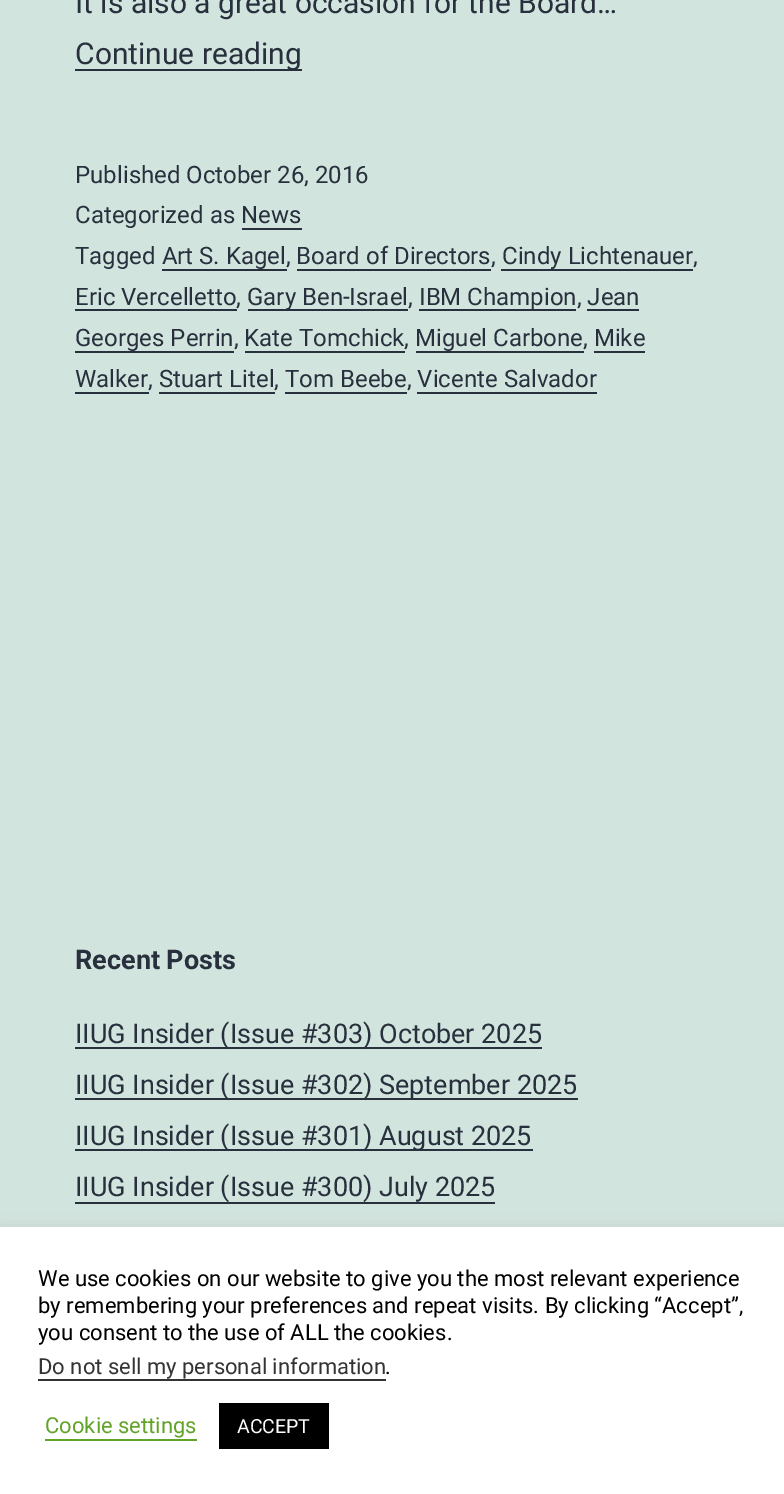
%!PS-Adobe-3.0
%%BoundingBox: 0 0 784 1494
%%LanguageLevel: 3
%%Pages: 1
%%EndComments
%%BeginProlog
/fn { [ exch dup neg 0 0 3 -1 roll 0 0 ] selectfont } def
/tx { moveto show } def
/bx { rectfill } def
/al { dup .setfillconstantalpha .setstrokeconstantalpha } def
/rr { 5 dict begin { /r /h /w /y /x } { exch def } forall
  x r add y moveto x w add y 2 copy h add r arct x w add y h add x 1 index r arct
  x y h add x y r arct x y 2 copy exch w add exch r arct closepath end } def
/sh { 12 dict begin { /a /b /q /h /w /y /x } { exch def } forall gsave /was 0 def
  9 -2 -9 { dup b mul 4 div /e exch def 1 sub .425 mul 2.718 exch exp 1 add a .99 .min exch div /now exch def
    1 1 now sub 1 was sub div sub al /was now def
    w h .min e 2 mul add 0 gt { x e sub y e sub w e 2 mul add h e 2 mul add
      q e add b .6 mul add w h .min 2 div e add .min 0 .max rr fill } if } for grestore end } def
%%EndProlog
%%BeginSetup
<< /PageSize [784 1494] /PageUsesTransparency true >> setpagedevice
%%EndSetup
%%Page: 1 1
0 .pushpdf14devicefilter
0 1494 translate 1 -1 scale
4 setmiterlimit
0.82 0.894 0.867 setrgbcolor
0 0 784 1494 bx
/Roboto-Regular 30 fn
0.157 0.188 0.239 setrgbcolor
(It is also a great occasion for the Board…) 75 13 tx
75 69 227 2 bx
(Continue reading) 75 64 tx
/Roboto-Regular 24 fn
(Published October 26, 2016) 75 183 tx
(Categorized as News) 75 223 tx
242 228 60 2 bx
(Tagged Art S. Kagel, Board of Directors,) 75 264 tx
501 269 192 2 bx
(Cindy Lichtenauer,) 502 264 tx
162 269 125 2 bx
297 269 194 2 bx
(Eric Vercelletto,) 75 305 tx
75 309 162 2 bx
248 309 160 2 bx
(Gary Ben-Israel,) 247 305 tx
419 309 157 2 bx
(IBM Champion, Jean) 419 305 tx
(Georges Perrin, Kate Tomchick, Miguel Carbone, Mike) 75 346 tx
587 309 52 2 bx
75 351 159 2 bx
245 351 160 2 bx
416 351 168 2 bx
(Walker, Stuart Litel, Tom Beebe, Vicente Salvador) 75 387 tx
594 351 51 2 bx
75 392 74 2 bx
159 392 116 2 bx
285 392 122 2 bx
417 392 180 2 bx
/Roboto-Bold 27 fn
(Recent Posts) 75 969 tx
75 1047 467 2 bx
/Roboto-Regular 27 fn
(IIUG Insider \(Issue #303\) October 2025) 75 1043 tx
75 1098 503 2 bx
(IIUG Insider \(Issue #302\) September 2025) 75 1094 tx
75 1149 458 2 bx
(IIUG Insider \(Issue #301\) August 2025) 75 1145 tx
75 1202 420 2 bx
(IIUG Insider \(Issue #300\) July 2025) 75 1196 tx
0.675 0.671 0.671 setrgbcolor
0 1226 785 267 0 7.5 0.3 sh
1 setgray
0 1227 784 267 bx
/Roboto-Regular 22 fn
0 setgray
(We use cookies on our website to give you the most relevant experience) 38 1286 tx
(by remembering your preferences and repeat visits. By clicking “Accept”,) 38 1313 tx
(you consent to the use of ALL the cookies.) 38 1340 tx
0.2 setgray
(Do not sell my personal information) 38 1374 tx
38 1379 348 2 bx
0 setgray
(.) 385 1374 tx
0.384 0.639 0.161 setrgbcolor
(Cookie settings) 45 1433 tx
45 1439 152 2 bx
0 setgray
219 1403 110 46 bx
/Roboto-Regular 19.5 fn
1 setgray
(ACCEPT) 237 1433 tx
.poppdf14devicefilter showpage
%%EOF
